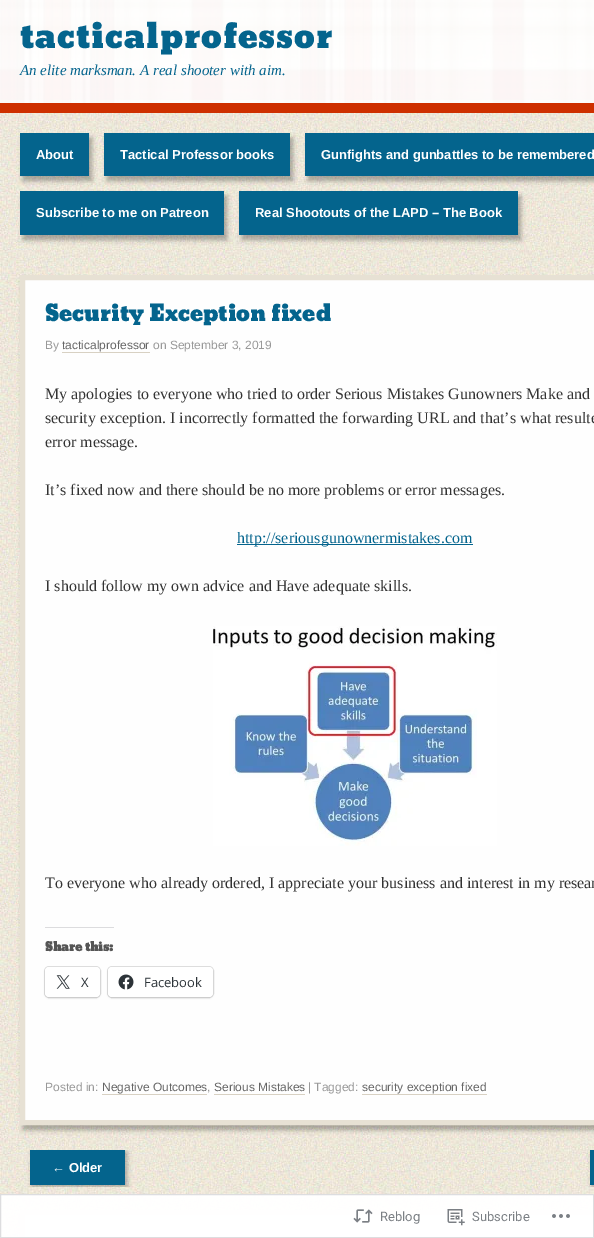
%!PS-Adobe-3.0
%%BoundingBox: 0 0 594 1238
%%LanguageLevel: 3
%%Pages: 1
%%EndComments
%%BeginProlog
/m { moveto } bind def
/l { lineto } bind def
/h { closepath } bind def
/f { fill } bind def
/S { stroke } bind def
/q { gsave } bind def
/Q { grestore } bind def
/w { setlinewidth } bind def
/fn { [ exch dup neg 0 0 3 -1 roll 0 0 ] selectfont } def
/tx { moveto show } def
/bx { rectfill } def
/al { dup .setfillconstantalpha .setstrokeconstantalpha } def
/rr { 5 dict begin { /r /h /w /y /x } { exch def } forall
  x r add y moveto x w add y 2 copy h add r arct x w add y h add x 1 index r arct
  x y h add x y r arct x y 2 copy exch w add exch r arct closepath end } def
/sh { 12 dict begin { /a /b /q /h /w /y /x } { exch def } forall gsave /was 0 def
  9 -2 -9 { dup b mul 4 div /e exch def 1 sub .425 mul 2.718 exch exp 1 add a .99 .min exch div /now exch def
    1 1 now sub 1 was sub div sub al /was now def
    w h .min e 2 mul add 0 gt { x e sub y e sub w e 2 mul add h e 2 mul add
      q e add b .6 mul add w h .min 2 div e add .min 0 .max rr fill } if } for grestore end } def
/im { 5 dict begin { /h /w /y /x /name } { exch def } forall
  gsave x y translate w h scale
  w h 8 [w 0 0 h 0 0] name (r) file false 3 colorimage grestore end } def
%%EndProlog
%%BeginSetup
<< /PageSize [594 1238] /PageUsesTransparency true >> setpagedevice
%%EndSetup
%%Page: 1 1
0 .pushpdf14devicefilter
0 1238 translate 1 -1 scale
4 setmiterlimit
1 setgray
0 0 594 1238 bx
(image0.raw) 0 0 594 103 im
0.808 0.188 0 setrgbcolor
0 103 594 10 bx
/Bevan-Regular 33 fn
0.016 0.392 0.553 setrgbcolor
20 48 m 1 0 (tacticalprofessor) ashow
/LiberationSerif-Italic 15 fn
(An elite marksman. A real shooter with aim.) 20 75 tx
(image1.raw) 0 113 594 1124 im
0 setgray
23 138 69 43 0 2.5 0.3 sh
0.016 0.392 0.553 setrgbcolor
20 133 69 43 bx
/LiberationSans-Bold 13 fn
1 setgray
(About) 36 159 tx
0 setgray
107 138 186 43 0 2.5 0.3 sh
0.016 0.392 0.553 setrgbcolor
104 133 186 43 bx
1 setgray
(Tactical Professor books) 120 159 tx
0 setgray
308 138 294 43 0 2.5 0.3 sh
0.016 0.392 0.553 setrgbcolor
305 133 289 43 bx
1 setgray
(Gunfights and gunbattles to be remembered) 321 159 tx
0 setgray
23 196 204 44 0 2.5 0.3 sh
0.016 0.392 0.553 setrgbcolor
20 191 204 44 bx
1 setgray
(Subscribe to me on Patreon) 36 217 tx
0 setgray
242 196 279 44 0 2.5 0.3 sh
0.016 0.392 0.553 setrgbcolor
239 191 279 44 bx
1 setgray
(Real Shootouts of the LAPD – The Book) 255 217 tx
0 setgray
23 280 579 850 0 2.5 0.3 sh
0.996 setgray
22.5 277.5 m 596.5 277.5 l 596.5 1122.5 l 22.5 1122.5 l h q f Q
0.906 0.882 0.831 setrgbcolor
5 w
S
/Bevan-Regular 22 fn
0.016 0.392 0.553 setrgbcolor
(Security Exception fixed) 45 321 tx
/LiberationSans-Regular 12 fn
0.6 setgray
(By) 45 349 tx
0.4 setgray
(tacticalprofessor) 62 349 tx
0.847 0.82 0.765 setrgbcolor
62 352 88 1 bx
0.6 setgray
(on September 3, 2019) 153 349 tx
/LiberationSerif-Regular 16 fn
0.2 setgray
(My apologies to everyone who tried to order Serious Mistakes Gunowners Make and) 45 399 tx
(security exception. I incorrectly formatted the forwarding URL and that’s what resulte) 45 423 tx
(error message.) 45 447 tx
(It’s fixed now and there should be no more problems or error messages.) 45 495 tx
0.016 0.392 0.553 setrgbcolor
237 544 236 1 bx
(http://seriousgunownermistakes.com) 237 543 tx
0.2 setgray
(I should follow my own advice and Have adequate skills.) 45 591 tx
(image2.raw) 213 626 284 220 im
(To everyone who already ordered, I appreciate your business and interest in my resear) 45 888 tx
0.863 0.863 0.871 setrgbcolor
45 927 69 1 bx
/Bevan-Bold 12 fn
0.333 setgray
(Share this:) 45 951 tx
0.878 setgray
1 w
44.5 966.5 56 31 4.5 rr S
0 setgray
45 968 55 30 4 1 0.12 sh
1 setgray
45 967 55 30 4 rr f
(image3.raw) 56 975 14 14 im
/OpenSans-Regular 13 fn
0.173 0.2 0.22 setrgbcolor
(X) 81 987 tx
0.878 setgray
107.5 966.5 106 31 4.5 rr S
0 setgray
108 968 105 30 4 1 0.12 sh
1 setgray
108 967 105 30 4 rr f
(image4.raw) 118 974 16 16 im
0.173 0.2 0.22 setrgbcolor
(Facebook) 144 987 tx
/LiberationSans-Regular 12 fn
0.6 setgray
(Posted in:) 45 1091 tx
0.4 setgray
(Negative Outcomes) 102 1091 tx
0.847 0.82 0.765 setrgbcolor
102 1094 105 1 bx
0.6 setgray
(,) 207 1091 tx
0.4 setgray
(Serious Mistakes) 214 1091 tx
0.847 0.82 0.765 setrgbcolor
214 1094 91 1 bx
0.6 setgray
(| Tagged:) 308 1091 tx
0.4 setgray
(security exception fixed) 362 1091 tx
0.847 0.82 0.765 setrgbcolor
362 1094 125 1 bx
q
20 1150 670 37 rectclip
0 setgray
32 1152 95 35 0 2.5 0.3 sh
Q
0.016 0.392 0.553 setrgbcolor
30 1150 95 35 bx
/LiberationSans-Bold 13 fn
1 setgray
(← Older) 52 1172 tx
q
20 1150 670 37 rectclip
0 setgray
592 1152 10 35 0 2.5 0.3 sh
Q
0.016 0.392 0.553 setrgbcolor
590 1150 4 35 bx
0 setgray
23 1215 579 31 0 2.5 0.3 sh
0.996 setgray
25 1215 568 22 bx
0.906 0.882 0.831 setrgbcolor
5 w
22.5 1212.5 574 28 rectstroke
0.98 al
1 setgray
0.5 1194.5 m 593.5 1194.5 l 593.5 1237.5 l 0.5 1237.5 l h f
1 al
0.867 0.867 0.875 setrgbcolor
1 w
0.5 1194.5 m 593.5 1194.5 l 593.5 1237.5 l 0.5 1237.5 l h S
(image5.raw) 353 1209 20 14 im
/Roboto-Regular 13 fn
0.482 0.498 0.518 setrgbcolor
(Reblog) 380 1221 tx
(image6.raw) 447 1209 18 17 im
(Subscribe) 472 1221 tx
(image7.raw) 552 1214 18 4 im
.poppdf14devicefilter showpage
%%EOF
